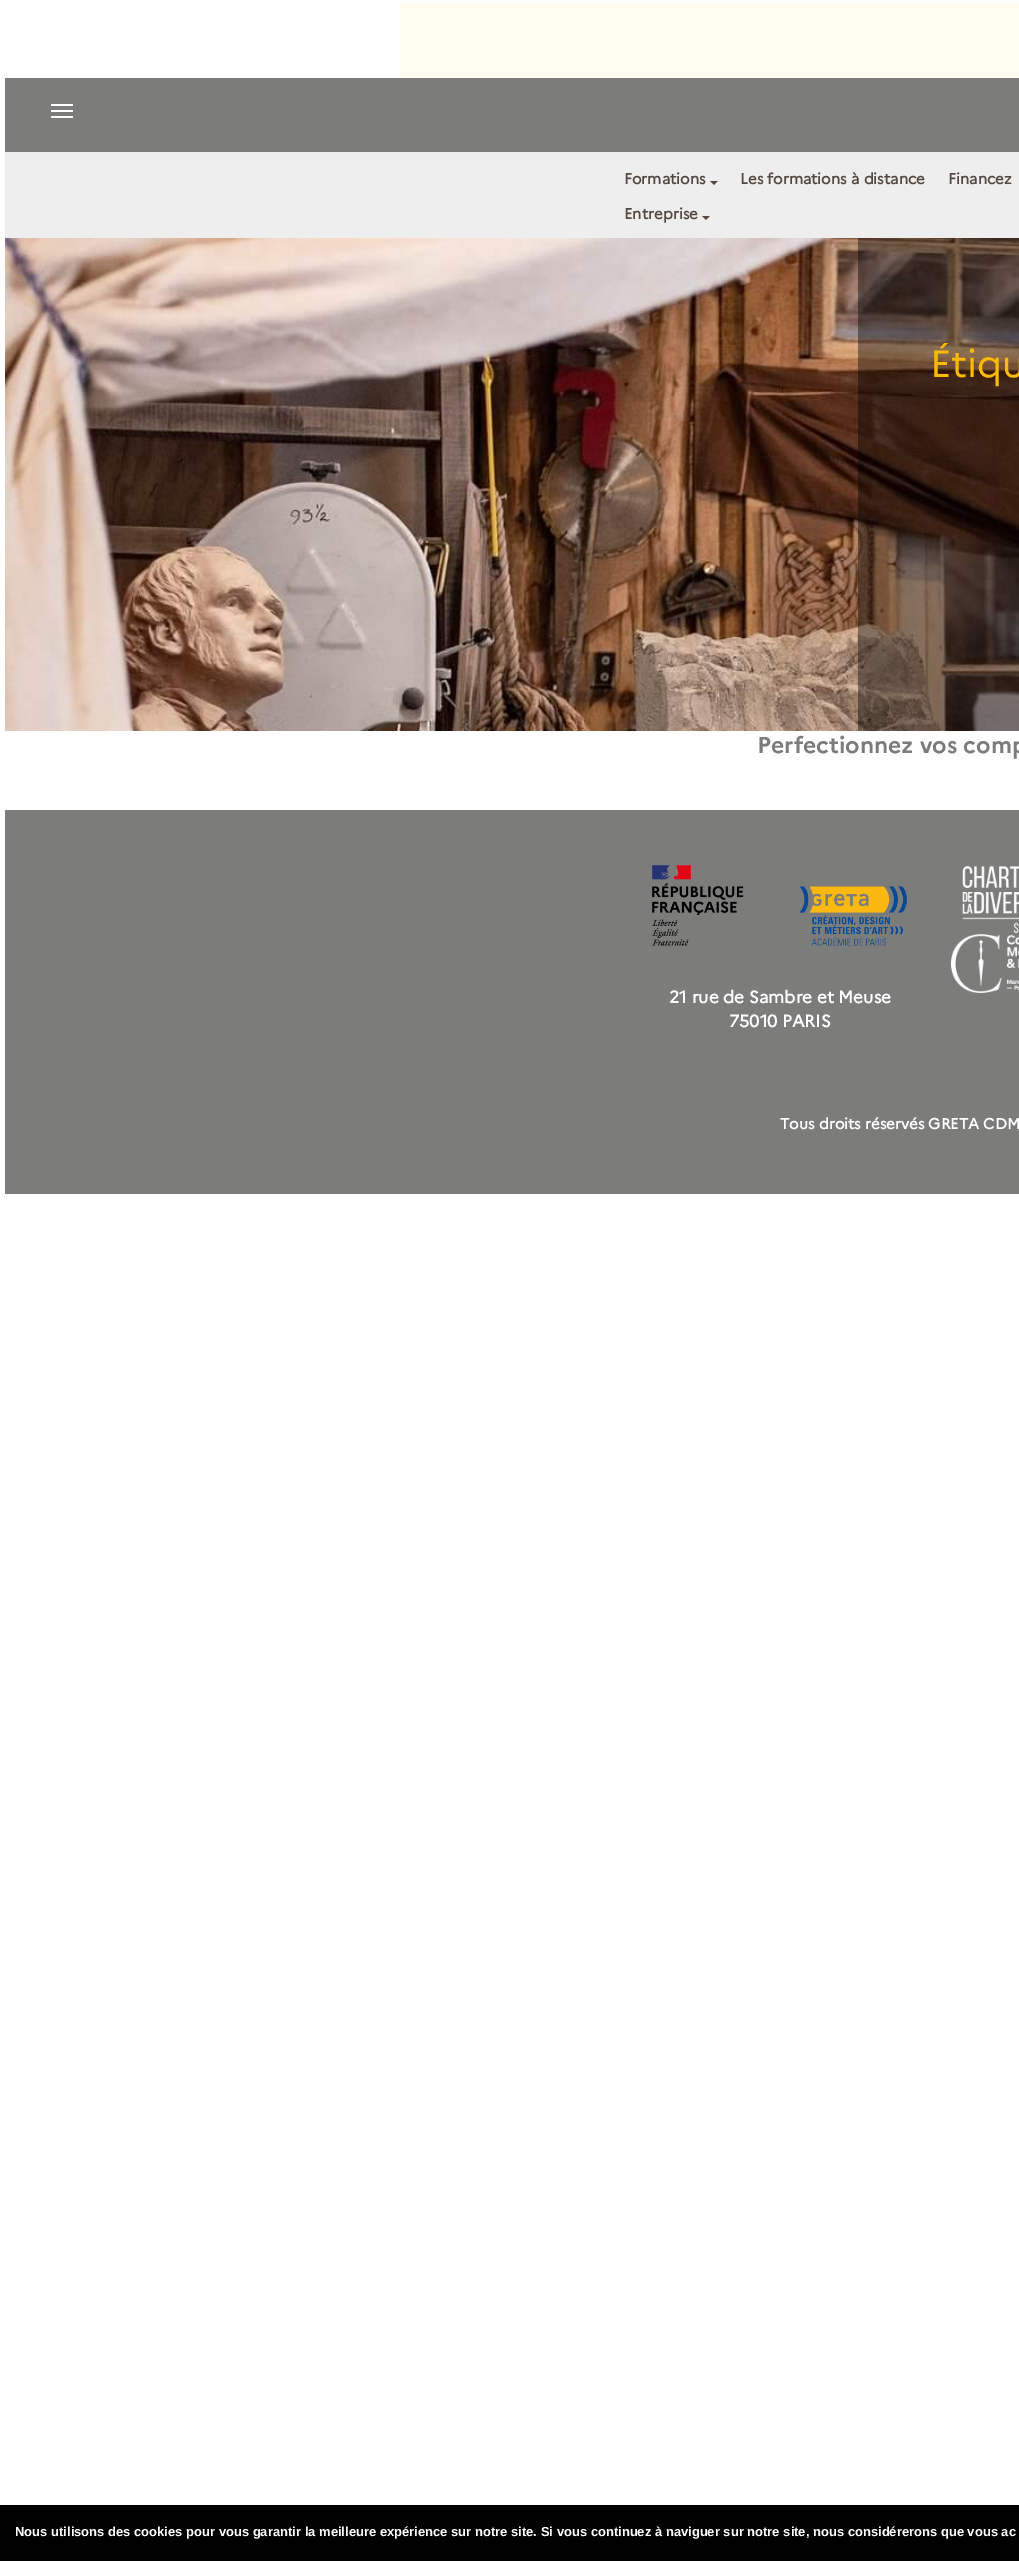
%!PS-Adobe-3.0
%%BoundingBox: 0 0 1019 2561
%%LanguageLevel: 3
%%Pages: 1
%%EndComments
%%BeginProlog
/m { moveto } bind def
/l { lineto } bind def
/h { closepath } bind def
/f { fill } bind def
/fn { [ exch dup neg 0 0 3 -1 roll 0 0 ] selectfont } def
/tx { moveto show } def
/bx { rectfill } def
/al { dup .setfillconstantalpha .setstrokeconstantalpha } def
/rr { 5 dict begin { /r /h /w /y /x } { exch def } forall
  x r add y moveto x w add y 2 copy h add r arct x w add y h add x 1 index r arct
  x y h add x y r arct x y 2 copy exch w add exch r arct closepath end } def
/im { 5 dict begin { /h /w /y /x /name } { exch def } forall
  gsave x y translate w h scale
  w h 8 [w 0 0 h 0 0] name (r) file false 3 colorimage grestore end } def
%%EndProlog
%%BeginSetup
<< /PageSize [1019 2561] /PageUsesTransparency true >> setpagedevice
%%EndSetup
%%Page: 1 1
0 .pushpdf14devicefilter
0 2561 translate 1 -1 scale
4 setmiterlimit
1 setgray
0 0 1019 2561 bx
1 0.988 0.949 setrgbcolor
400 3 619 75 bx
0.486 0.486 0.482 setrgbcolor
5 78 1014 74 bx
1 setgray
51 104 22 2 1 rr f
51 110 22 2 1 rr f
51 116 22 2 1 rr f
0.933 setgray
5 152 1014 86 bx
/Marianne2-Bold 15 fn
0.329 0.286 0.259 setrgbcolor
(Formations) 624 184 tx
710 181 m 718 181 l 714 185 l h f
(Les formations à distance) 740 184 tx
(Financez) 948 184 tx
(Entreprise) 624 219 tx
702 216 m 710 216 l 706 220 l h f
(image0.raw) 5 238 1014 493 im
0.4 al
0 setgray
858 238 161 493 bx
/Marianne-Regular 38 fn
1 al
0.984 0.729 0 setrgbcolor
(Étiqu) 930 377 tx
/Marianne-Bold 23 fn
0.486 0.486 0.482 setrgbcolor
(Perfectionnez vos comp) 757 753 tx
5 810 1014 384 bx
(image1.raw) 962 865 57 68 im
(image2.raw) 951 934 68 59 im
(image3.raw) 652 865 255 81 im
/Marianne2-Bold 17 fn
1 setgray
(21 rue de Sambre et Meuse) 669 1003 tx
(75010 PARIS) 729 1027 tx
/Marianne2-Bold 15 fn
(Tous droits réservés GRETA CDM) 780 1129 tx
0 setgray
0 2505 1019 56 bx
/LiberationSans-Bold 13 fn
1 setgray
(Nous utilisons des cookies pour vous garantir la meilleure expérience sur notre site. Si vous continuez à naviguer sur notre site, nous considérerons que vous ac) 15 2536 tx
.poppdf14devicefilter showpage
%%EOF
